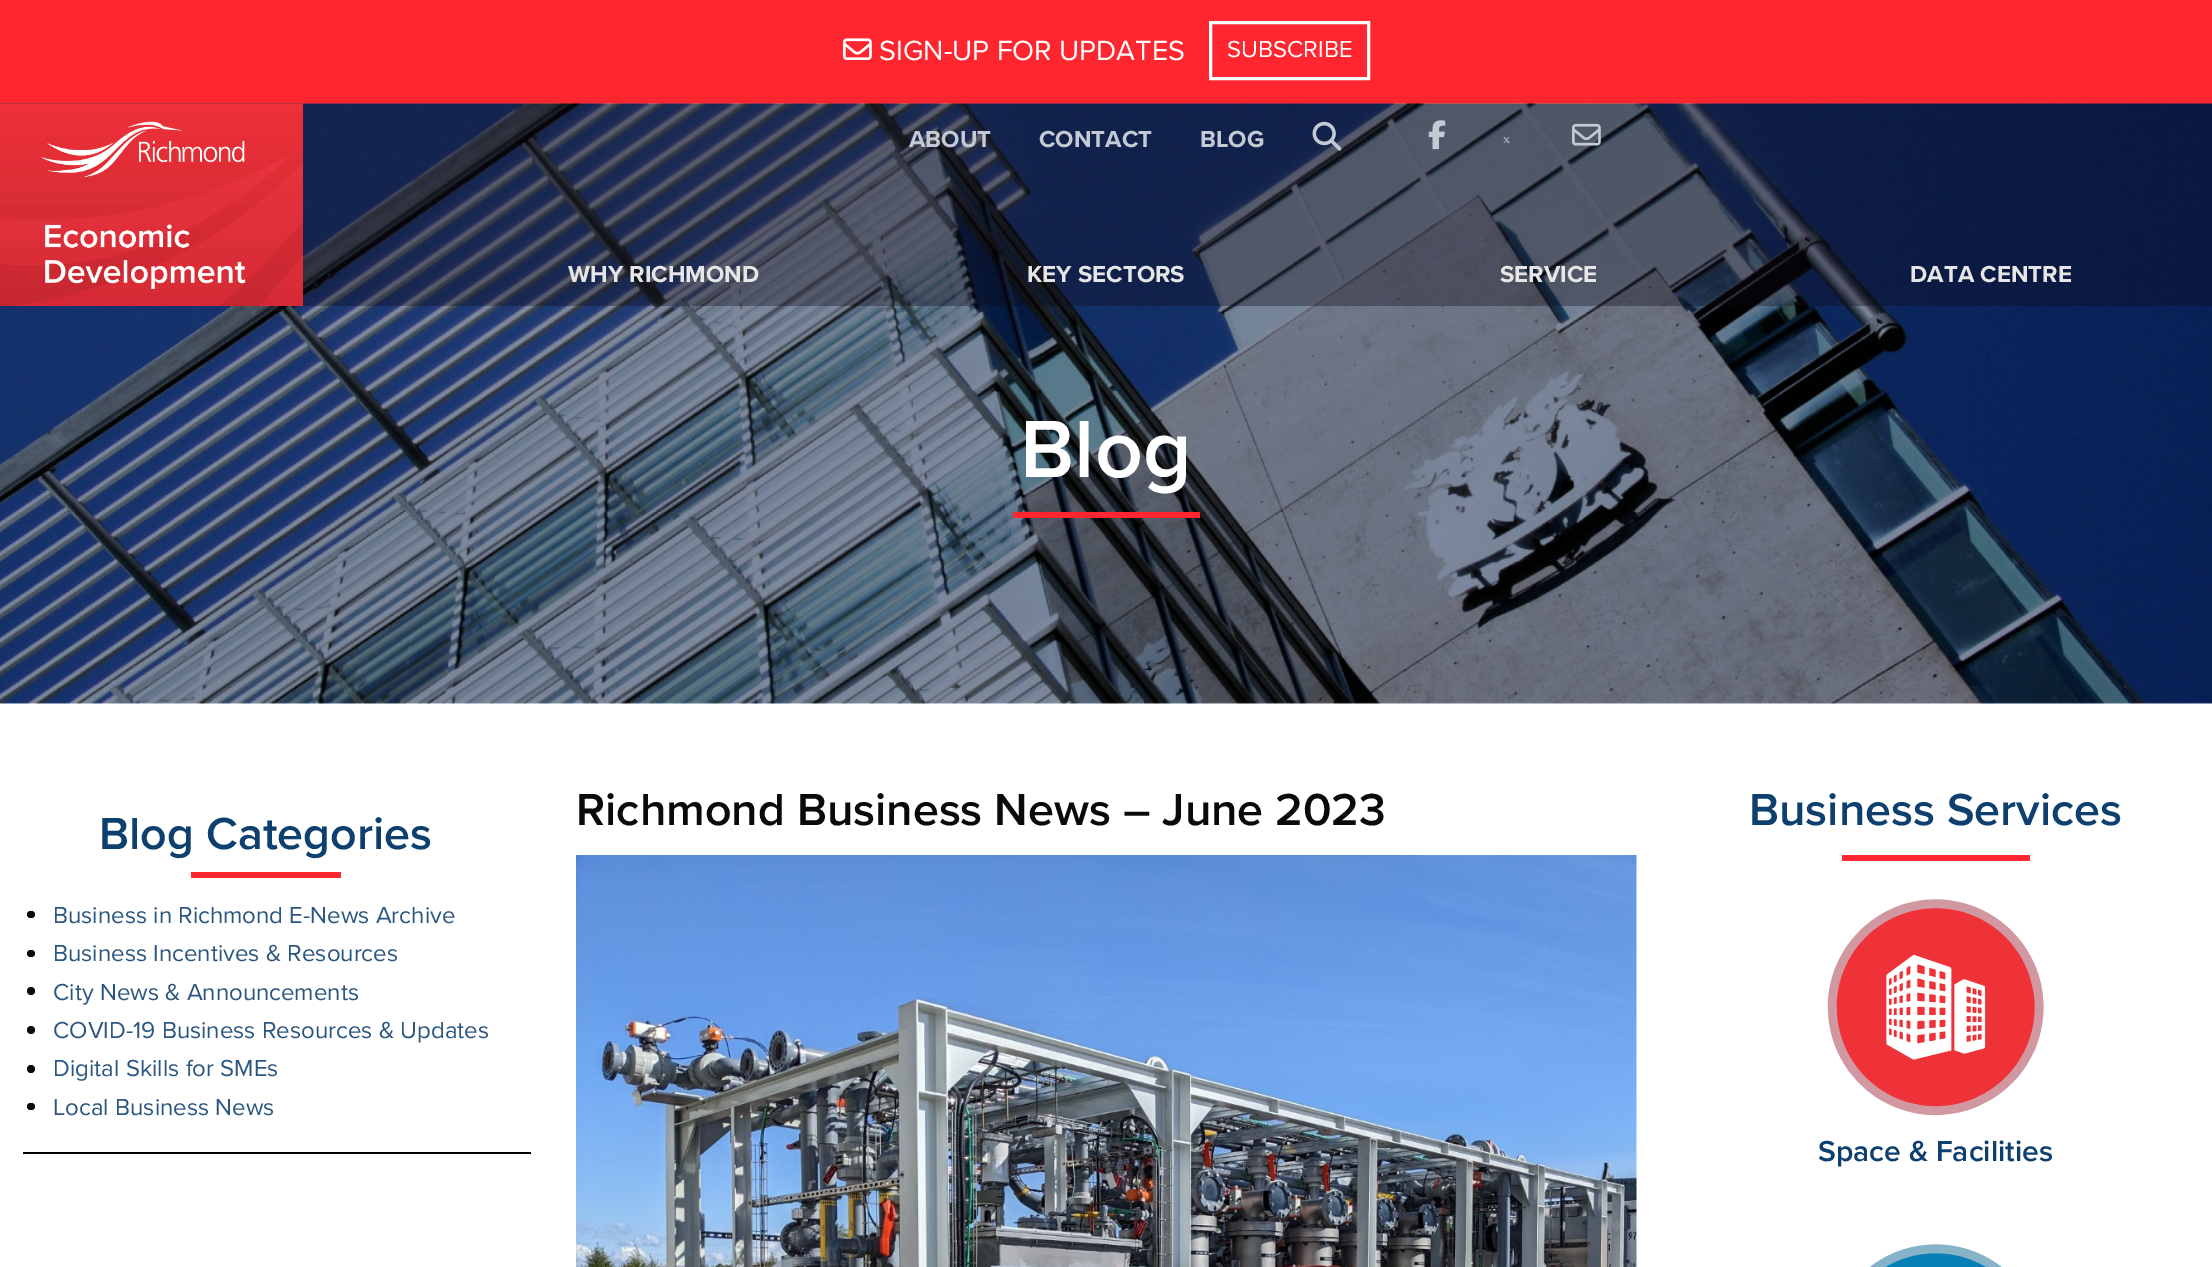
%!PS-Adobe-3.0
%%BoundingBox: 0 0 2212 1267
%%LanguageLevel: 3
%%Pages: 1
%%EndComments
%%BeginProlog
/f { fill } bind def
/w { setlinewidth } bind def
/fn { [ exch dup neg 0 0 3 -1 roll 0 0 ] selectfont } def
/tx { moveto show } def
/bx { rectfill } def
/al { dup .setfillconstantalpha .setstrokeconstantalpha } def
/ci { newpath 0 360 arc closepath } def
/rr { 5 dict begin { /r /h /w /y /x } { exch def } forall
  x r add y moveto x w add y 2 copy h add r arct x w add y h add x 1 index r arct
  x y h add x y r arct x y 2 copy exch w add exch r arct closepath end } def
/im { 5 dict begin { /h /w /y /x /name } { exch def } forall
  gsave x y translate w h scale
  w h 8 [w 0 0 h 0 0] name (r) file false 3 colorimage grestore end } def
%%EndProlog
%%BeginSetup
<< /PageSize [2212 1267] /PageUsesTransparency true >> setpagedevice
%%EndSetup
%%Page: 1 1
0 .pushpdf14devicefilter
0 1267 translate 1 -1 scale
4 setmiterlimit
1 setgray
0 0 2212 1267 bx
1 0.149 0.184 setrgbcolor
0 0 2212 104 bx
(image0.raw) 843 38 29 22 im
/ProximaNova-Regular 28.75 fn
1 setgray
(SIGN-UP FOR UPDATES) 879 60 tx
3 w
1210.5 22.5 158 56 rectstroke
/ProximaNova-Regular 24 fn
(SUBSCRIBE) 1227 57 tx
(image6.raw) 0 103 2212 601 im
0.35 al
0.055 0.031 0.078 setrgbcolor
0 104 2212 202 bx
1 al
(image1.raw) 0 103 303 203 im
/ProximaNova-Bold 24 fn
0.765 0.792 0.831 setrgbcolor
(ABOUT) 909 147 tx
(CONTACT) 1039 147 tx
(BLOG) 1200 147 tx
(image2.raw) 1312 121 30 30 im
(image3.raw) 1428 120 18 30 im
(image4.raw) 1503 137 7 6 im
(image5.raw) 1572 123 29 23 im
0.902 setgray
(WHY RICHMOND) 568 282 tx
(KEY SECTORS) 1027 282 tx
(SERVICE) 1500 282 tx
(DATA CENTRE) 1910 282 tx
/ProximaNova-SemiBold 84 fn
1 setgray
(Blog) 1020 477 tx
1 0.149 0.184 setrgbcolor
1013 512 187 6 bx
/ProximaNova-SemiBold 46.5 fn
0.051 0.251 0.435 setrgbcolor
(Blog Categories) 99 849 tx
1 0.149 0.184 setrgbcolor
191 872 150 6 bx
0.039 setgray
27 911 8 7 3.5 rr f
/ProximaNova-Regular 24 fn
0.169 0.337 0.502 setrgbcolor
(Business in Richmond E-News Archive) 53 923 tx
0.039 setgray
27 950 8 7 3.5 rr f
0.169 0.337 0.502 setrgbcolor
(Business Incentives & Resources) 53 961 tx
0.039 setgray
31 991 4 ci f
0.169 0.337 0.502 setrgbcolor
(City News & Announcements) 53 1000 tx
0.039 setgray
31 1030 4 ci f
0.169 0.337 0.502 setrgbcolor
(COVID-19 Business Resources & Updates) 53 1038 tx
0.039 setgray
31 1069 4 ci f
0.169 0.337 0.502 setrgbcolor
(Digital Skills for SMEs) 53 1076 tx
0.039 setgray
27 1103 8 7 3.5 rr f
0.169 0.337 0.502 setrgbcolor
(Local Business News) 53 1115 tx
0 setgray
23 1152 508 2 bx
/ProximaNova-SemiBold 46.5 fn
0.039 setgray
(Richmond Business News – June 2023) 576 825 tx
(image7.raw) 576 855 1061 412 im
0.051 0.251 0.435 setrgbcolor
(Business Services) 1749 825 tx
1 0.149 0.184 setrgbcolor
1842 855 188 6 bx
(image8.raw) 1827 899 217 217 im
/ProximaNova-SemiBold 30 fn
0.051 0.251 0.435 setrgbcolor
(Space & Facilities) 1818 1161 tx
(image9.raw) 1870 1244 132 23 im
.poppdf14devicefilter showpage
%%EOF
